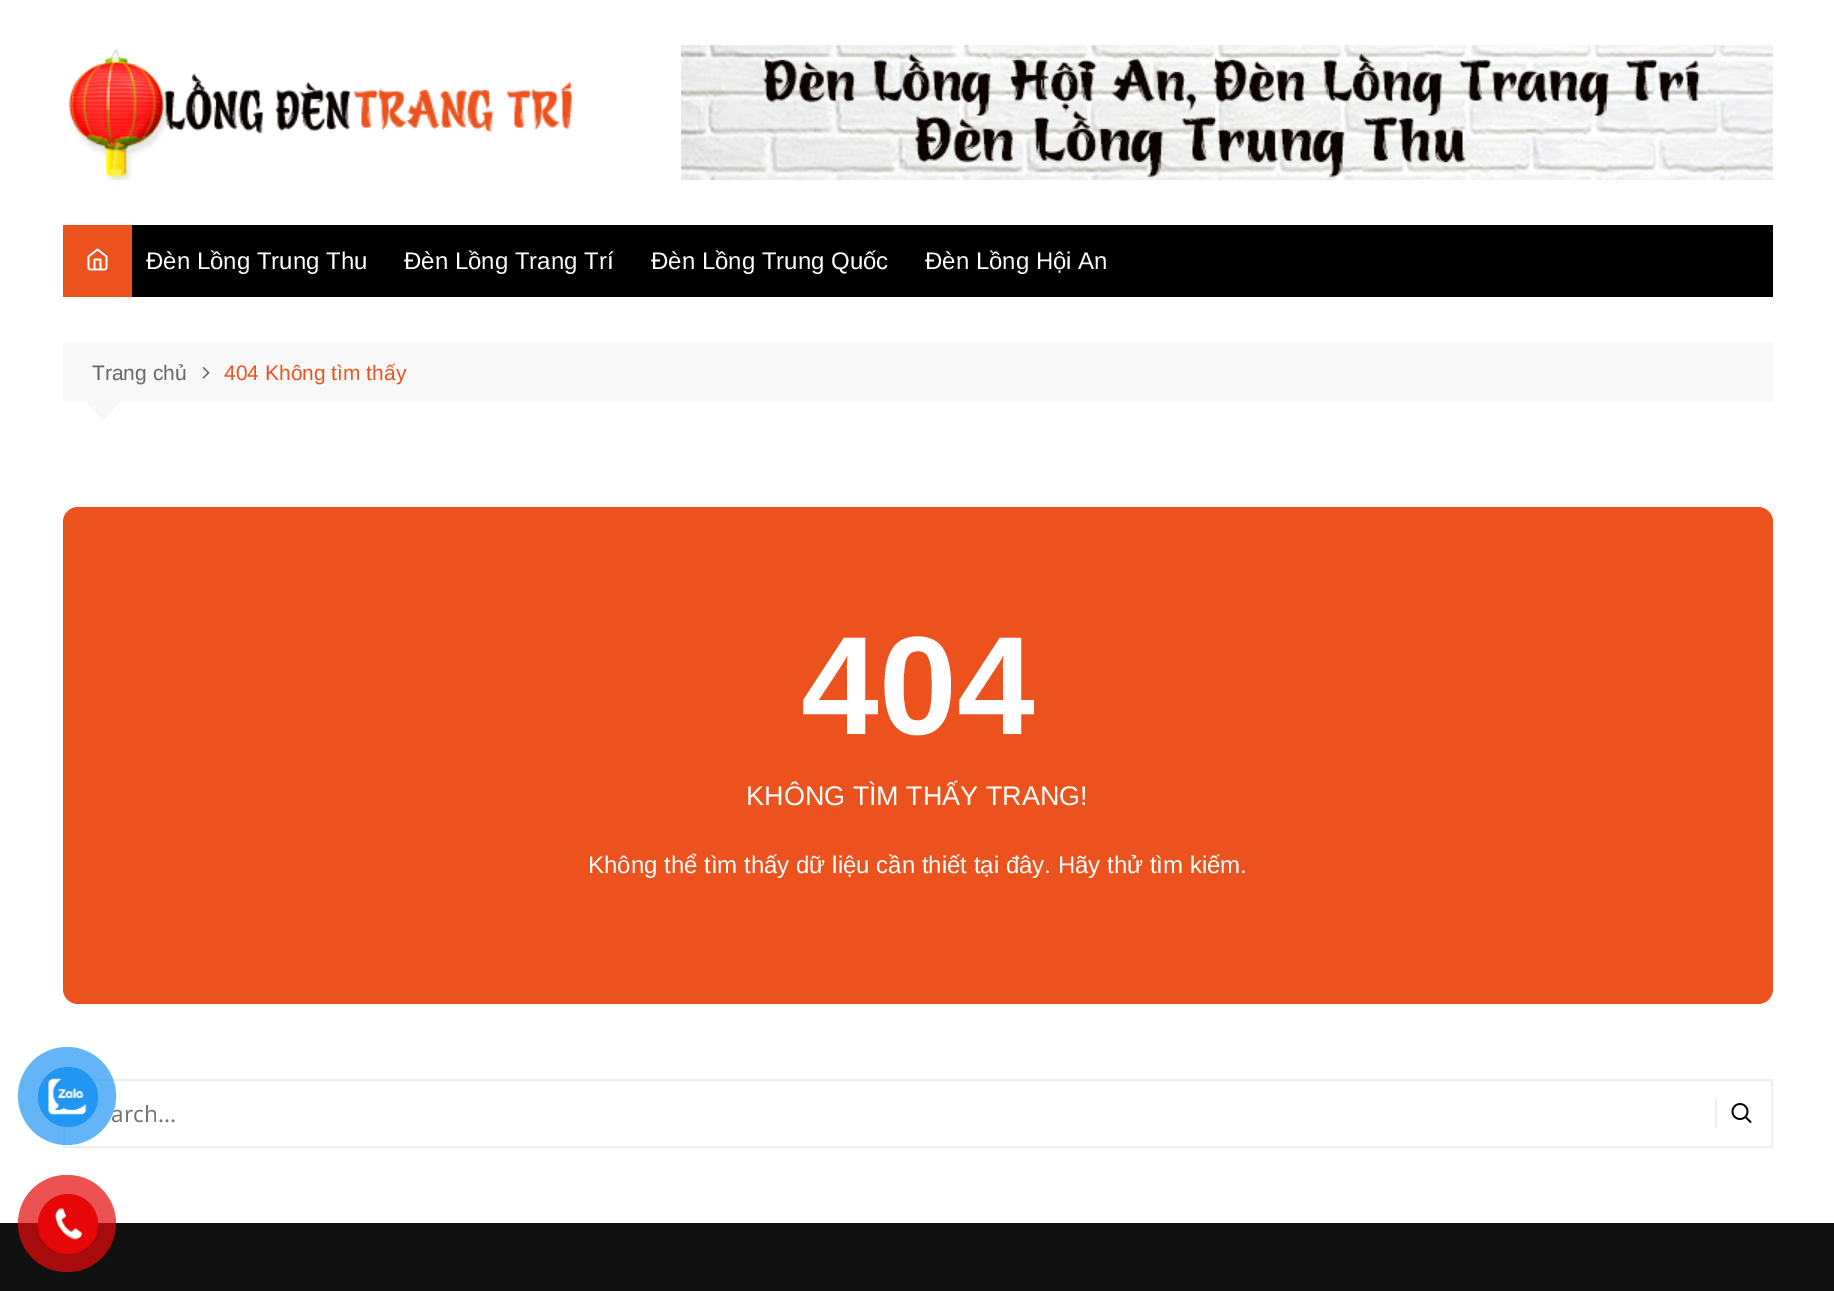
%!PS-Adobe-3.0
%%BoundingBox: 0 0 1834 1291
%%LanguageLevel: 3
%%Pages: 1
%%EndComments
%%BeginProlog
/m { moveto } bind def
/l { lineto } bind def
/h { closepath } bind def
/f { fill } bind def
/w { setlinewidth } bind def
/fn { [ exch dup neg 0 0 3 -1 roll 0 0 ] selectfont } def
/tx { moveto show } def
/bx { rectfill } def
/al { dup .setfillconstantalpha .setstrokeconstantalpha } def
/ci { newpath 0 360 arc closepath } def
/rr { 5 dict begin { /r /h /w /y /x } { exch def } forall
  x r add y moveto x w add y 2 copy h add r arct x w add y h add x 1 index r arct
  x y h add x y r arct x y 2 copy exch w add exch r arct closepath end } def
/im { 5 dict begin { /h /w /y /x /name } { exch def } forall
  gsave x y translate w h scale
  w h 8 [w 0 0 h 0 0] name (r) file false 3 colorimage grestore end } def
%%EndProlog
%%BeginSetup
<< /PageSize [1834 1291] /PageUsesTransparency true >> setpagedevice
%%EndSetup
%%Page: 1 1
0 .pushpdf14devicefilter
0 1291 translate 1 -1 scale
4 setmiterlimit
1 setgray
0 0 1834 1291 bx
(image0.raw) 68 49 504 131 im
(image1.raw) 681 45 1092 135 im
0 setgray
132 225 1641 72 bx
0.925 0.322 0.118 setrgbcolor
63 225 69 72 bx
(image2.raw) 87 248 21 23 im
/LiberationSans-Regular 24 fn
1 setgray
(Đèn Lồng Trung Thu) 146 269 tx
(Đèn Lồng Trang Trí) 404 269 tx
(Đèn Lồng Trung Quốc) 651 269 tx
(Đèn Lồng Hội An) 925 269 tx
0.973 setgray
63 342 1710 60 bx
/LiberationSans-Regular 21 fn
0.4 setgray
(Trang chủ) 92 380 tx
(image3.raw) 202 367 8 12 im
0.925 0.322 0.118 setrgbcolor
(404 Không tìm thấy) 224 380 tx
0.969 setgray
85 401.5 m 121 401.5 l 103 421 l h f
0.925 0.322 0.118 setrgbcolor
63 507 1710 497 15 rr f
/LiberationSans-Bold 140 fn
1 setgray
(404) 801 734 tx
/LiberationSans-Regular 27 fn
(KHÔNG TÌM THẤY TRANG!) 746 805 tx
/LiberationSans-Regular 24 fn
(Không thể tìm thấy dữ liệu cần thiết tại đây. Hãy thử tìm kiếm.) 588 873 tx
0.933 setgray
2 w
64 1080 1708 67 rectstroke
/NotoSans-Regular 22.5 fn
0.459 setgray
(arch...) 111 1122 tx
0.933 setgray
1715 1098 2 30 bx
(image4.raw) 1731 1103 21 20 im
0.067 setgray
0 1223 1834 68 bx
0.7 al
0.129 0.588 0.953 setrgbcolor
67 1096 49 ci f
1 al
68 1097 30 ci f
(image5.raw) 48 1078 39 37 im
0.7 al
0.902 0.031 0.031 setrgbcolor
18 1175 98 97 48.5 rr f
1 al
68 1224 30 ci f
(image6.raw) 55 1208 27 32 im
.poppdf14devicefilter showpage
%%EOF
